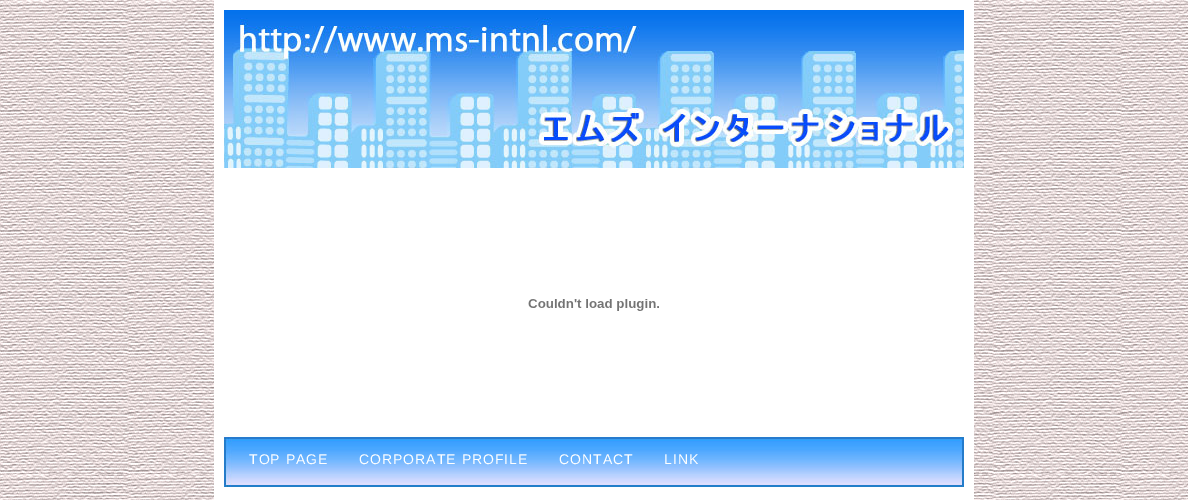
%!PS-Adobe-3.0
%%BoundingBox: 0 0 1188 500
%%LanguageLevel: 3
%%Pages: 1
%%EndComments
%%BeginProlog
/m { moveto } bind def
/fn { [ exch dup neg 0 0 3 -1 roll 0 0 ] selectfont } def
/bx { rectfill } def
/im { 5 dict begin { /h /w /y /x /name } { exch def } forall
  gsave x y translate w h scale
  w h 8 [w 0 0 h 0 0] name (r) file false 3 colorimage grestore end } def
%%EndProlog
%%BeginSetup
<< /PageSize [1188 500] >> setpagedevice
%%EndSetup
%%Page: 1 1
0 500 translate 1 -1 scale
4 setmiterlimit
1 setgray
0 0 1188 500 bx
(image0.raw) 0 0 1188 500 im
214 0 760 500 bx
(image1.raw) 224 10 740 158 im
(image2.raw) 528 299 131 12 im
(image3.raw) 224 434 740 53 im
/LiberationSans-Regular 14 fn
249 464 m 1 0 (TOP PAGE) ashow
359 464 m 1 0 (CORPORATE PROFILE) ashow
559 464 m 1 0 (CONTACT) ashow
664 464 m 1 0 (LINK) ashow
showpage
%%EOF
